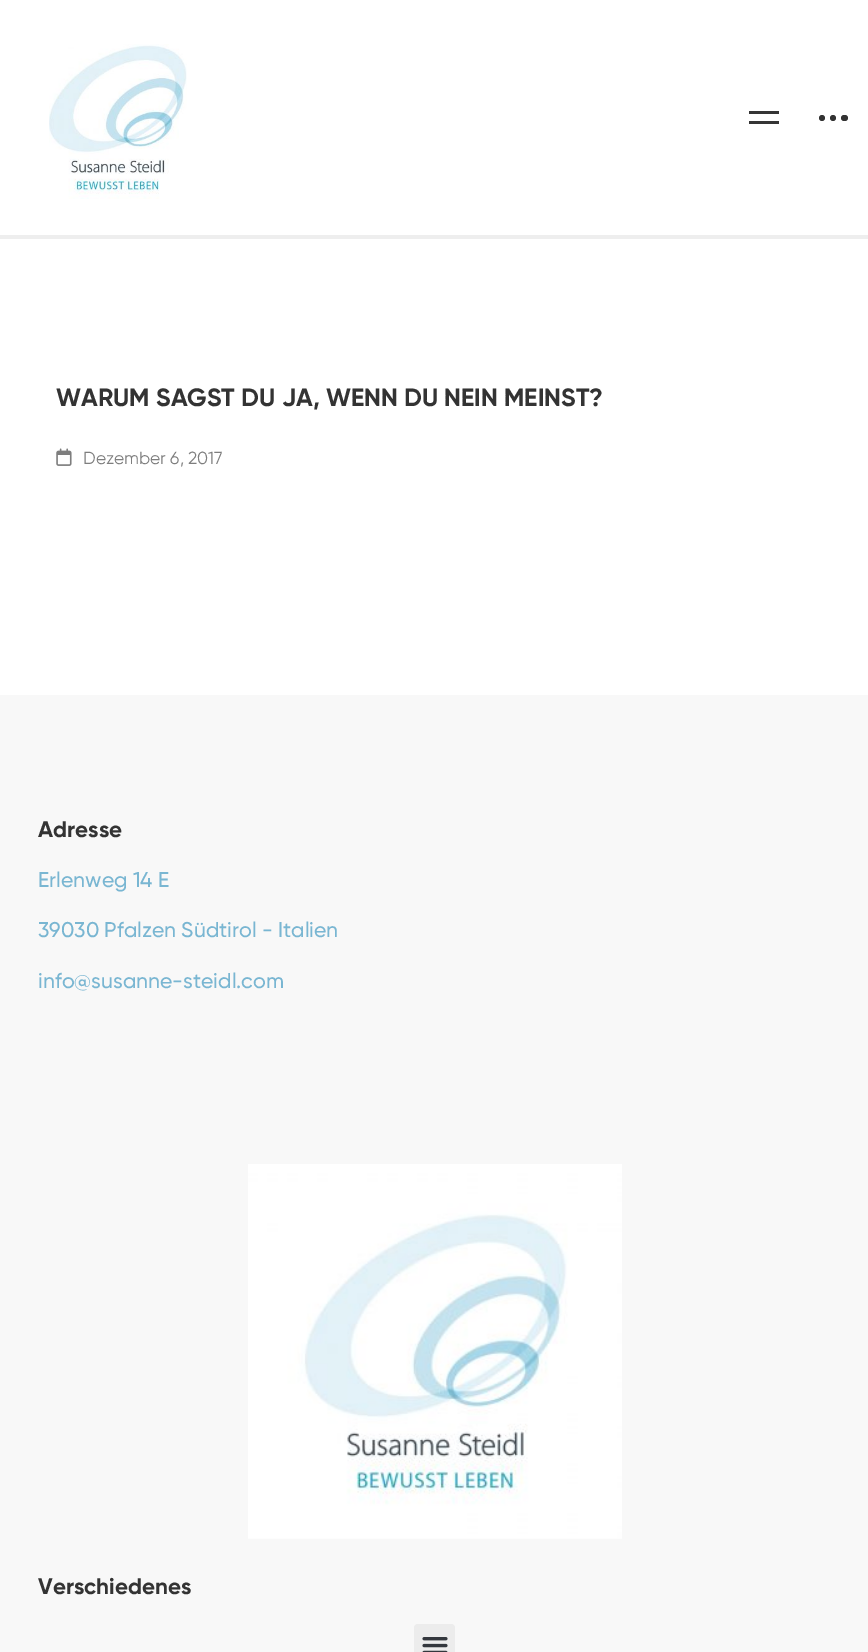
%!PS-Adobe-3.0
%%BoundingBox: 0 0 868 1652
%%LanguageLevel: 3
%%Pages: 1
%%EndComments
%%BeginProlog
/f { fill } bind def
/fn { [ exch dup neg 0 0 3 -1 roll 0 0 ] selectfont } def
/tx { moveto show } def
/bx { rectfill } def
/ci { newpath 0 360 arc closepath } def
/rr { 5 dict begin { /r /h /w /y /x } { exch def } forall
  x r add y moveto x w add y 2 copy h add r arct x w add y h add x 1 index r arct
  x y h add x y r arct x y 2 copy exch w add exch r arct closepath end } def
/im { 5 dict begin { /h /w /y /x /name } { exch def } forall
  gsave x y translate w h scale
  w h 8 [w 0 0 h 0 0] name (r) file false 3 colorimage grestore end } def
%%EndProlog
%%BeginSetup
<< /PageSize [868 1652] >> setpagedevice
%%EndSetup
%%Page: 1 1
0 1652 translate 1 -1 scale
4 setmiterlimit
1 setgray
0 0 868 1652 bx
0.933 setgray
0 235 868 4 bx
(image0.raw) 49 44 138 155 im
0.208 setgray
749 111 30 3 bx
749 121 30 3 bx
0.2 setgray
822 118 3 ci f
833 118 3 ci f
841 115 7 6 3 rr f
/Gilroy-Bold 25 fn
(WARUM SAGST DU JA, WENN DU NEIN MEINST?) 56 406 tx
(image1.raw) 56 448 16 18 im
/Gilroy-Regular 17.5 fn
0.494 setgray
(Dezember 6, 2017) 83 464 tx
0.973 setgray
0 695 868 957 bx
/Gilroy-Bold 22.5 fn
0.2 setgray
(Adresse) 38 837 tx
/Gilroy-Medium 21.25 fn
0.475 0.714 0.824 setrgbcolor
(Erlenweg 14 E) 38 887 tx
(39030 Pfalzen Südtirol - Italien) 38 937 tx
(info@susanne-steidl.com) 38 988 tx
(image2.raw) 248 1164 374 375 im
/Gilroy-Bold 22.5 fn
0.2 setgray
(Verschiedenes) 38 1594 tx
0.925 setgray
414 1624 41 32 4 rr f
(image3.raw) 422 1637 26 15 im
showpage
%%EOF
